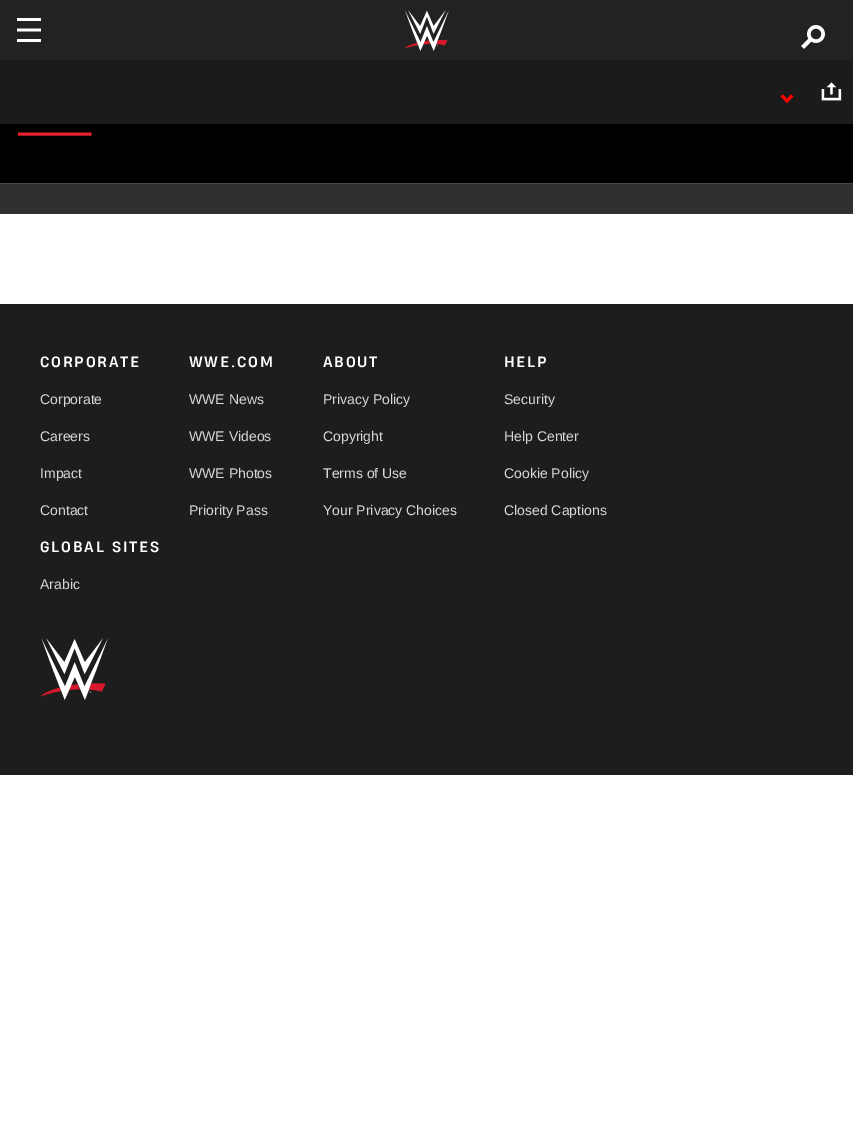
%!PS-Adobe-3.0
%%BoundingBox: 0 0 853 1143
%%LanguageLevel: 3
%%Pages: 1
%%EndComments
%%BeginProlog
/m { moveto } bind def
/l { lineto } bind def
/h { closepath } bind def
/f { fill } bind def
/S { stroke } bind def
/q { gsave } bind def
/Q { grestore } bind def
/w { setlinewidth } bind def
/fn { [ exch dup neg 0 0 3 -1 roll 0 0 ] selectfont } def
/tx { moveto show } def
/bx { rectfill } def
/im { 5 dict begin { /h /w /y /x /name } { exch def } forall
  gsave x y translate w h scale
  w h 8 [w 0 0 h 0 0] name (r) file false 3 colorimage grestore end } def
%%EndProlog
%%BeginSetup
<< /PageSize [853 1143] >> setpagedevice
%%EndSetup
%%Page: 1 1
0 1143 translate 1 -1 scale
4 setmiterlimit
1 setgray
0 0 853 1143 bx
0.133 setgray
0 0 853 60 bx
(image0.raw) 17 18 24 24 im
(image1.raw) 404 10 45 41 im
(image2.raw) 801 25 24 24 im
0.188 setgray
0 184 853 30 bx
0.106 setgray
0 60 853 64 bx
1 0 0 setrgbcolor
791 94.5 m 793.5 96.5 l 787 103 l 785 101 l h f
783 94.5 m 789 101 l 787 103 l 780.5 96.5 l h f
(image3.raw) 821 82 21 19 im
0 setgray
0 124 853 59 bx
0.278 setgray
0 183 853 1 bx
q
18 131 90 5 rectclip
0.906 0.125 0.184 setrgbcolor
3 w
1.5 134 m 91.5 134 l S
Q
0.114 setgray
0 304 853 471 bx
/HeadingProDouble-Bold 14 fn
1 setgray
40 367 m 1.75 0 (CORPORATE) ashow
/LiberationSans-Regular 14 fn
0.847 setgray
(Corporate) 40 404 tx
(Careers) 40 441 tx
(Impact) 40 478 tx
(Contact) 40 515 tx
/HeadingProDouble-Bold 14 fn
1 setgray
189 367 m 1.75 0 (WWE.COM) ashow
/LiberationSans-Regular 14 fn
0.847 setgray
(WWE News) 189 404 tx
(WWE Videos) 189 441 tx
(WWE Photos) 189 478 tx
(Priority Pass) 189 515 tx
/HeadingProDouble-Bold 14 fn
1 setgray
323 367 m 1.75 0 (ABOUT) ashow
/LiberationSans-Regular 14 fn
0.847 setgray
(Privacy Policy) 323 404 tx
(Copyright) 323 441 tx
(Terms of Use) 323 478 tx
(Your Privacy Choices) 323 515 tx
/HeadingProDouble-Bold 14 fn
1 setgray
504 367 m 1.75 0 (HELP) ashow
/LiberationSans-Regular 14 fn
0.847 setgray
(Security) 504 404 tx
(Help Center) 504 441 tx
(Cookie Policy) 504 478 tx
(Closed Captions) 504 515 tx
/HeadingProDouble-Bold 14 fn
1 setgray
40 552 m 1.75 0 (GLOBAL SITES) ashow
/LiberationSans-Regular 14 fn
0.847 setgray
(Arabic) 40 589 tx
(image4.raw) 40 638 68 62 im
showpage
%%EOF
